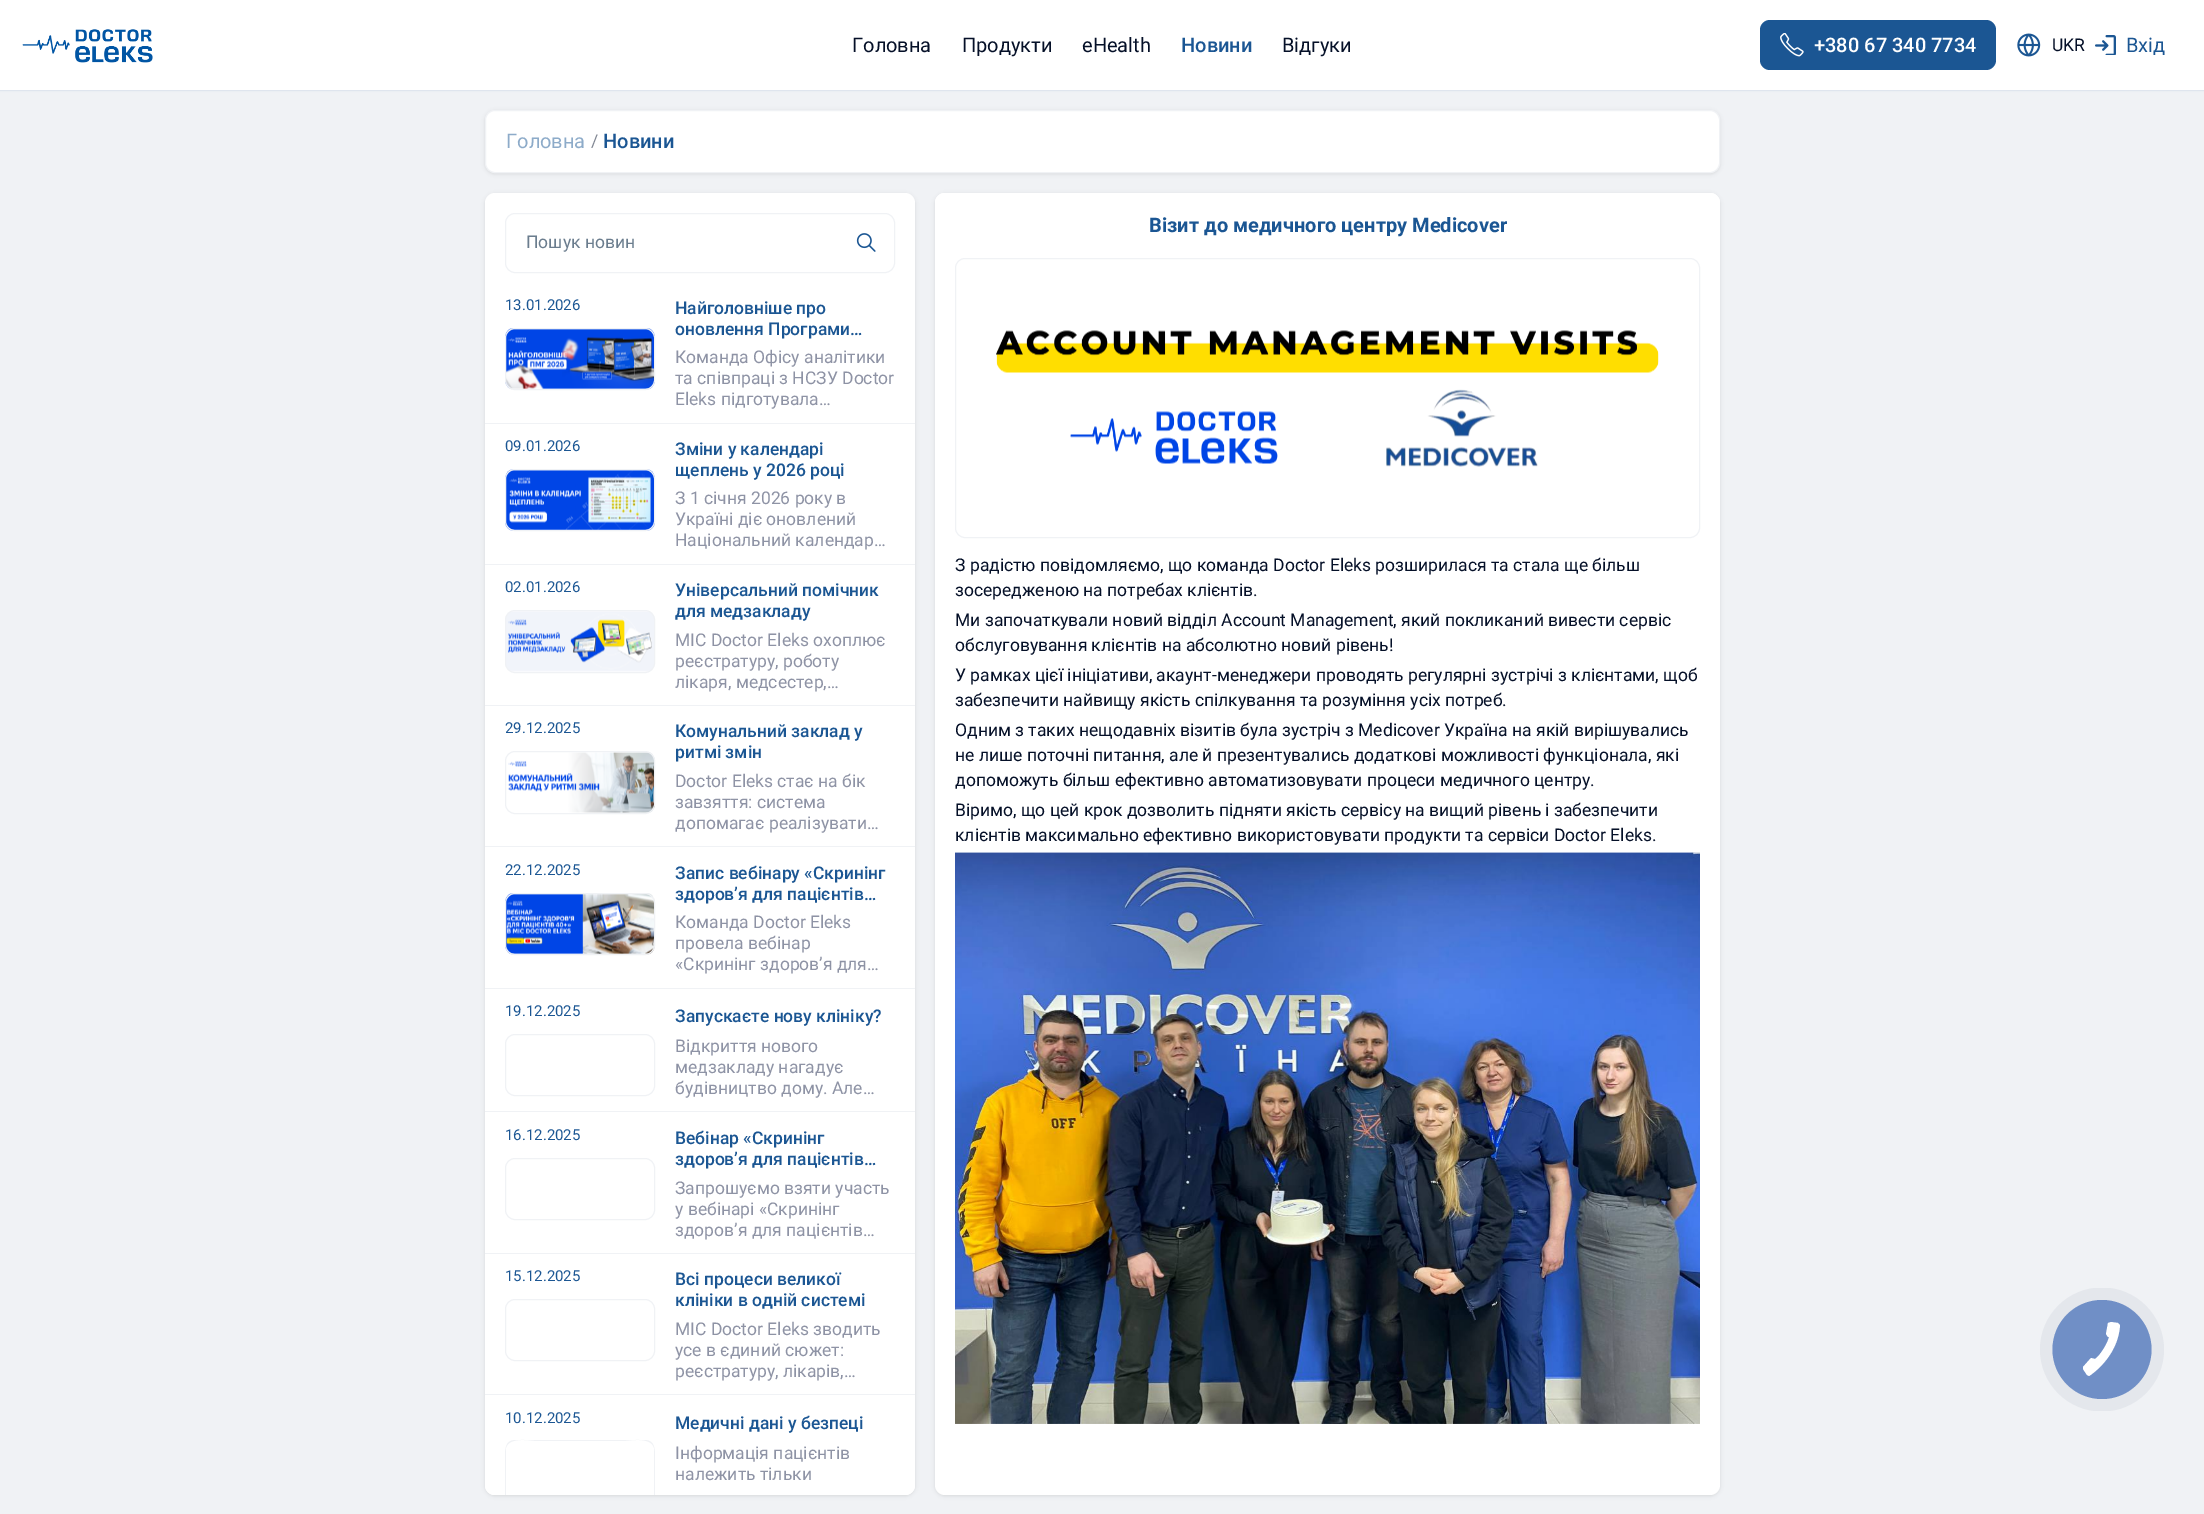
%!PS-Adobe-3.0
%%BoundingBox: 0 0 2204 1514
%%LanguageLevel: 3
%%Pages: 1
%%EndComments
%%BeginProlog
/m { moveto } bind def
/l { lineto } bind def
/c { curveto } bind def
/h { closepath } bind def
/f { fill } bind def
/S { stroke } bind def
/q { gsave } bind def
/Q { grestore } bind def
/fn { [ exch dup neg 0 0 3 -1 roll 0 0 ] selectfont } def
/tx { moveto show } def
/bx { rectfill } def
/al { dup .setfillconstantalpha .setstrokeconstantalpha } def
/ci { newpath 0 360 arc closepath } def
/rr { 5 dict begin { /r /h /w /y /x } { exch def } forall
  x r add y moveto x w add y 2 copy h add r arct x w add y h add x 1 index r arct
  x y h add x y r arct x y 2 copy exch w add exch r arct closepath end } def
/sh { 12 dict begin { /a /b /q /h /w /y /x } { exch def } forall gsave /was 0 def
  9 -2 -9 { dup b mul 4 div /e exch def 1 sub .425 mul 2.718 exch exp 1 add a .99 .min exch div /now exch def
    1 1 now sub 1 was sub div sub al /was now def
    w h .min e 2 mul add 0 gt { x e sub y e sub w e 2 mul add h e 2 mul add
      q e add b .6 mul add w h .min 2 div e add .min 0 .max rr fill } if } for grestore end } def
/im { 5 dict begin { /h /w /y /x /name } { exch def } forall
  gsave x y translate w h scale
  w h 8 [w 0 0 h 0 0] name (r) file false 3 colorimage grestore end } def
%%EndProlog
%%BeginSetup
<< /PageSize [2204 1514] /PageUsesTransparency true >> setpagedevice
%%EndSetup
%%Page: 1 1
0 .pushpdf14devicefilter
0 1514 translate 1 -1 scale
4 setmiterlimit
0.941 0.949 0.961 setrgbcolor
0 0 2204 1514 bx
0.11 0.282 0.592 setrgbcolor
0 0 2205 90 0 1 0.25 sh
1 setgray
0 0 2204 90 bx
(image0.raw) 22 29 131 34 im
/Roboto-Regular 20 fn
0.02 0.063 0.157 setrgbcolor
(Головна) 852 52 tx
(Продукти) 962 52 tx
(eHealth) 1082 52 tx
/Roboto-Medium 20 fn
0.106 0.337 0.576 setrgbcolor
(Новини) 1181 52 tx
/Roboto-Regular 20 fn
0.02 0.063 0.157 setrgbcolor
(Відгуки) 1282 52 tx
0.106 0.337 0.576 setrgbcolor
1760 20 236 50 10 rr f
(image1.raw) 1780 33 24 24 im
/Roboto-Medium 20 fn
1 setgray
(+380 67 340 7734) 1814 52 tx
(image2.raw) 2017 33 24 24 im
/Roboto-Regular 17.5 fn
0.02 0.063 0.157 setrgbcolor
(UKR) 2052 51 tx
(image3.raw) 2095 35 21 20 im
/Roboto-Regular 20 fn
0.106 0.337 0.576 setrgbcolor
(Вхід) 2126 52 tx
0.235 setgray
485 111 1235 63 10 2 0.15 sh
1 setgray
485.5 110.5 1234 62 9.5 rr q f Q
0.941 0.949 0.961 setrgbcolor
S
0.553 0.671 0.788 setrgbcolor
(Головна) 506 148 tx
/Roboto-Regular 17.5 fn
0.51 0.533 0.58 setrgbcolor
(/) 591 147 tx
/Roboto-Medium 20 fn
0.106 0.337 0.576 setrgbcolor
(Новини) 603 148 tx
0.235 setgray
485 194 430 1302 10 2 0.15 sh
1 setgray
485 193 430 1302 10 rr f
0.941 0.949 0.961 setrgbcolor
505.5 213.5 389 59 9.5 rr S
/Roboto-Regular 17.5 fn
0.42 0.49 0.557 setrgbcolor
(Пошук новин) 526 248 tx
(image4.raw) 856 233 20 19 im
0.941 0.949 0.961 setrgbcolor
485 423 430 1 bx
/Roboto-Regular 15 fn
0.106 0.337 0.576 setrgbcolor
(13.01.2026) 505 310 tx
(image5.raw) 505 328 150 62 im
0.941 0.949 0.961 setrgbcolor
505.5 328.5 149 61 9.5 rr S
/Roboto-Medium 17.5 fn
0.106 0.337 0.576 setrgbcolor
(Найголовніше про) 675 314 tx
(оновлення Програми…) 675 335 tx
/Roboto-Regular 17.5 fn
0.557 0.576 0.647 setrgbcolor
(Команда Офісу аналітики) 675 363 tx
(та співпраці з НСЗУ Doctor) 675 384 tx
(Eleks підготувала…) 675 405 tx
0.941 0.949 0.961 setrgbcolor
485 564 430 1 bx
/Roboto-Regular 15 fn
0.106 0.337 0.576 setrgbcolor
(09.01.2026) 505 451 tx
(image6.raw) 505 469 150 62 im
0.941 0.949 0.961 setrgbcolor
505.5 469.5 149 61 9.5 rr S
/Roboto-Medium 17.5 fn
0.106 0.337 0.576 setrgbcolor
(Зміни у календарі) 675 455 tx
(щеплень у 2026 році) 675 476 tx
/Roboto-Regular 17.5 fn
0.557 0.576 0.647 setrgbcolor
(З 1 січня 2026 року в) 675 504 tx
(Україні діє оновлений) 675 525 tx
(Національний календар…) 675 546 tx
0.941 0.949 0.961 setrgbcolor
485 705 430 1 bx
/Roboto-Regular 15 fn
0.106 0.337 0.576 setrgbcolor
(02.01.2026) 505 592 tx
(image7.raw) 505 611 150 61 im
0.941 0.949 0.961 setrgbcolor
505.5 610.5 149 62 9.5 rr S
/Roboto-Medium 17.5 fn
0.106 0.337 0.576 setrgbcolor
(Універсальний помічник) 675 596 tx
(для медзакладу) 675 617 tx
/Roboto-Regular 17.5 fn
0.557 0.576 0.647 setrgbcolor
(МІС Doctor Eleks охоплює) 675 646 tx
(реєстратуру, роботу) 675 667 tx
(лікаря, медсестер,…) 675 688 tx
0.941 0.949 0.961 setrgbcolor
485 846 430 1 bx
/Roboto-Regular 15 fn
0.106 0.337 0.576 setrgbcolor
(29.12.2025) 505 733 tx
(image8.raw) 508 752 147 61 im
0.941 0.949 0.961 setrgbcolor
505.5 751.5 149 62 9.5 rr S
/Roboto-Medium 17.5 fn
0.106 0.337 0.576 setrgbcolor
(Комунальний заклад у) 675 737 tx
(ритмі змін) 675 758 tx
/Roboto-Regular 17.5 fn
0.557 0.576 0.647 setrgbcolor
(Doctor Eleks стає на бік) 675 787 tx
(завзяття: система) 675 808 tx
(допомагає реалізувати…) 675 829 tx
0.941 0.949 0.961 setrgbcolor
485 988 430 1 bx
/Roboto-Regular 15 fn
0.106 0.337 0.576 setrgbcolor
(22.12.2025) 505 875 tx
(image9.raw) 505 893 150 62 im
0.941 0.949 0.961 setrgbcolor
505.5 893.5 149 61 9.5 rr S
/Roboto-Medium 17.5 fn
0.106 0.337 0.576 setrgbcolor
(Запис вебінару «Скринінг) 675 879 tx
(здоров’я для пацієнтів…) 675 900 tx
/Roboto-Regular 17.5 fn
0.557 0.576 0.647 setrgbcolor
(Команда Doctor Eleks) 675 928 tx
(провела вебінар) 675 949 tx
(«Скринінг здоров’я для…) 675 970 tx
0.941 0.949 0.961 setrgbcolor
485 1111 430 1 bx
/Roboto-Regular 15 fn
0.106 0.337 0.576 setrgbcolor
(19.12.2025) 505 1016 tx
0.941 0.949 0.961 setrgbcolor
505.5 1034.5 149 61 9.5 rr S
/Roboto-Medium 17.5 fn
0.106 0.337 0.576 setrgbcolor
(Запускаєте нову клініку?) 675 1022 tx
/Roboto-Regular 17.5 fn
0.557 0.576 0.647 setrgbcolor
(Відкриття нового) 675 1052 tx
(медзакладу нагадує) 675 1073 tx
(будівництво дому. Але…) 675 1094 tx
0.941 0.949 0.961 setrgbcolor
485 1253 430 1 bx
/Roboto-Regular 15 fn
0.106 0.337 0.576 setrgbcolor
(16.12.2025) 505 1140 tx
0.941 0.949 0.961 setrgbcolor
505.5 1158.5 149 61 9.5 rr S
/Roboto-Medium 17.5 fn
0.106 0.337 0.576 setrgbcolor
(Вебінар «Скринінг) 675 1144 tx
(здоров’я для пацієнтів…) 675 1165 tx
/Roboto-Regular 17.5 fn
0.557 0.576 0.647 setrgbcolor
(Запрошуємо взяти участь) 675 1194 tx
(у вебінарі «Скринінг) 675 1215 tx
(здоров’я для пацієнтів…) 675 1236 tx
0.941 0.949 0.961 setrgbcolor
485 1394 430 1 bx
/Roboto-Regular 15 fn
0.106 0.337 0.576 setrgbcolor
(15.12.2025) 505 1281 tx
0.941 0.949 0.961 setrgbcolor
505.5 1299.5 149 61 9.5 rr S
/Roboto-Medium 17.5 fn
0.106 0.337 0.576 setrgbcolor
(Всі процеси великої) 675 1285 tx
(клініки в одній системі) 675 1306 tx
/Roboto-Regular 17.5 fn
0.557 0.576 0.647 setrgbcolor
(МІС Doctor Eleks зводить) 675 1335 tx
(усе в єдиний сюжет:) 675 1356 tx
(реєстратуру, лікарів,…) 675 1377 tx
1 setgray
485 1395 m 915 1395 l 915 1485 l 915 1490.5 910.5 1495 905 1495 c 495 1495 l 489.5 1495 485 1490.5 485 1485 c h f
/Roboto-Regular 15 fn
0.106 0.337 0.576 setrgbcolor
(10.12.2025) 505 1423 tx
0.941 0.949 0.961 setrgbcolor
515 1440 m 505 1440 505 1450 505 1457 c 505 1495 l 506 1495 l 506 1448 l 509 1436 532 1441 537 1441 c 623 1441 l 628 1441 651 1436 654 1448 c 654 1495 l 655 1495 l 655 1457 l 655 1450 655 1440 645 1440 c h f
/Roboto-Medium 17.5 fn
0.106 0.337 0.576 setrgbcolor
(Медичні дані у безпеці) 675 1429 tx
/Roboto-Regular 17.5 fn
0.557 0.576 0.647 setrgbcolor
(Інформація пацієнтів) 675 1459 tx
(належить тільки) 675 1480 tx
0.235 setgray
935 194 785 1302 10 2 0.15 sh
1 setgray
935 193 785 1302 10 rr f
945 193 m 1710 193 l 1715.5 193 1720 197.5 1720 203 c 1720 1450 l 935 1450 l 935 203 l 935 197.5 939.5 193 945 193 c h f
/Roboto-Bold 20 fn
0.106 0.337 0.576 setrgbcolor
(Візит до медичного центру Medicover) 1149 232 tx
(image10.raw) 996 330 663 137 im
0.941 0.949 0.961 setrgbcolor
955.5 258.5 744 279 9.5 rr S
/Roboto-Regular 17.5 fn
0.02 0.063 0.157 setrgbcolor
(З радістю повідомляємо, що команда Doctor Eleks розширилася та стала ще більш) 955 571 tx
(зосередженою на потребах клієнтів.) 955 596 tx
(Ми започаткували новий відділ Account Management, який покликаний вивести сервіс) 955 626 tx
(обслуговування клієнтів на абсолютно новий рівень!) 955 651 tx
(У рамках цієї ініціативи, акаунт-менеджери проводять регулярні зустрічі з клієнтами, щоб) 955 681 tx
(забезпечити найвищу якість спілкування та розуміння усіх потреб.) 955 706 tx
(Одним з таких нещодавніх візитів була зустріч з Medicover Україна на якій вирішувались) 955 736 tx
(не лише поточні питання, але й презентувались додаткові можливості функціонала, які) 955 761 tx
(допоможуть більш ефективно автоматизовувати процеси медичного центру.) 955 786 tx
(Віримо, що цей крок дозволить підняти якість сервісу на вищий рівень і забезпечити) 955 816 tx
(клієнтів максимально ефективно використовувати продукти та сервіси Doctor Eleks.) 955 841 tx
(image11.raw) 955 852 745 572 im
q
2040 1288 124 123 rectclip
0.894 0.906 0.925 setrgbcolor
2102 1349.5 62 ci f
Q
0.439 0.561 0.776 setrgbcolor
2102 1349.5 49.5 ci f
1 setgray
2109 1337 m 2108 1343 2100 1356 2095 1359 c 2091 1358 l 2083 1367 l 2083 1369 l 2087 1375 l 2089 1376 l 2089 1376 2118 1358 2120 1325 c 2118 1323 l 2111 1322 l 2108 1323 l 2106 1334 l 2108 1337 l eofill
.poppdf14devicefilter showpage
%%EOF
